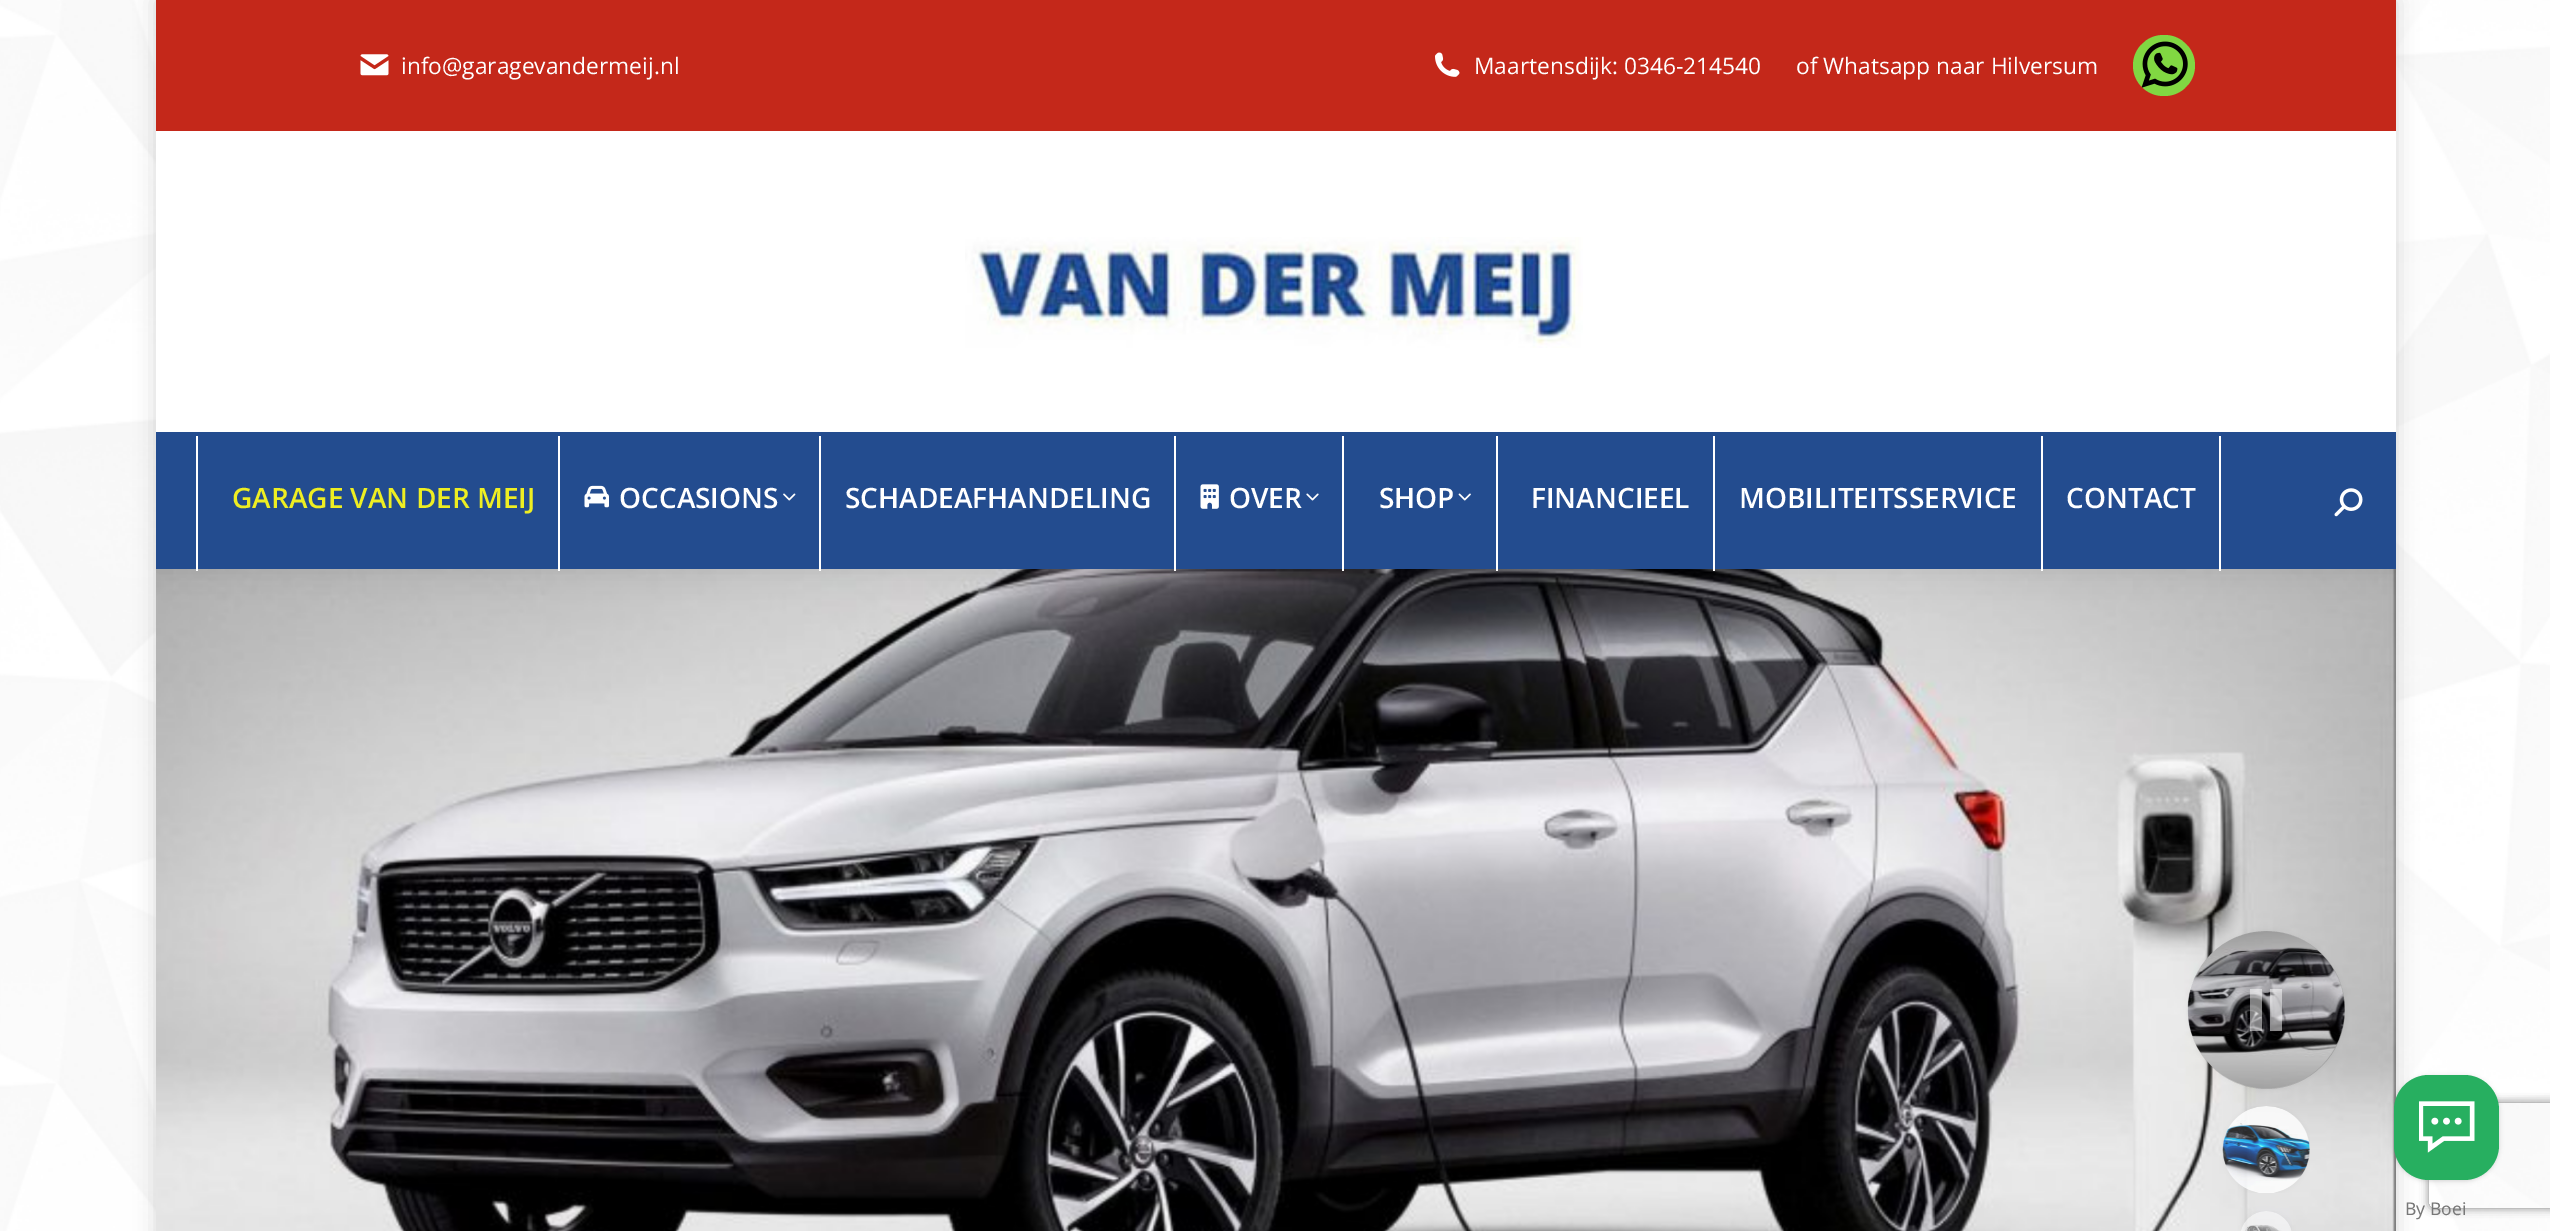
%!PS-Adobe-3.0
%%BoundingBox: 0 0 2550 1231
%%LanguageLevel: 3
%%Pages: 1
%%EndComments
%%BeginProlog
/m { moveto } bind def
/l { lineto } bind def
/c { curveto } bind def
/h { closepath } bind def
/f { fill } bind def
/q { gsave } bind def
/Q { grestore } bind def
/fn { [ exch dup neg 0 0 3 -1 roll 0 0 ] selectfont } def
/tx { moveto show } def
/bx { rectfill } def
/al { dup .setfillconstantalpha .setstrokeconstantalpha } def
/rr { 5 dict begin { /r /h /w /y /x } { exch def } forall
  x r add y moveto x w add y 2 copy h add r arct x w add y h add x 1 index r arct
  x y h add x y r arct x y 2 copy exch w add exch r arct closepath end } def
/sh { 12 dict begin { /a /b /q /h /w /y /x } { exch def } forall gsave /was 0 def
  9 -2 -9 { dup b mul 4 div /e exch def 1 sub .425 mul 2.718 exch exp 1 add a .99 .min exch div /now exch def
    1 1 now sub 1 was sub div sub al /was now def
    w h .min e 2 mul add 0 gt { x e sub y e sub w e 2 mul add h e 2 mul add
      q e add b .6 mul add w h .min 2 div e add .min 0 .max rr fill } if } for grestore end } def
/im { 5 dict begin { /h /w /y /x /name } { exch def } forall
  gsave x y translate w h scale
  w h 8 [w 0 0 h 0 0] name (r) file false 3 colorimage grestore end } def
%%EndProlog
%%BeginSetup
<< /PageSize [2550 1231] /PageUsesTransparency true >> setpagedevice
%%EndSetup
%%Page: 1 1
0 .pushpdf14devicefilter
0 1231 translate 1 -1 scale
4 setmiterlimit
1 setgray
0 0 2550 1231 bx
(image0.raw) 0 0 2550 1231 im
0 setgray
156 0 2240 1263 0 10.5 0.15 sh
(image11.raw) 156 569 2240 662 im
q
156 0 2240 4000 rectclip
154 -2 2244 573 0 13 0.07 sh
Q
1 setgray
156 131 2240 301 bx
0.769 0.157 0.102 setrgbcolor
156 0 2240 131 bx
(image1.raw) 360 54 29 22 im
/OpenSans-Regular 22.75 fn
1 setgray
(info@garagevandermeij.nl) 401 74 tx
(image2.raw) 1435 52 25 25 im
(Maartensdijk: 0346-214540) 1474 74 tx
(of Whatsapp naar Hilversum) 1796 74 tx
0.506 0.843 0.259 setrgbcolor
2133 35 62 61 30.5 rr f
(image3.raw) 2141 41 47 47 im
(image4.raw) 965 237 618 111 im
0.137 0.298 0.561 setrgbcolor
156 432 2240 137 bx
1 setgray
196 436 2 135 bx
/OpenSans-SemiBold 28 fn
0.933 0.933 0.133 setrgbcolor
(GARAGE VAN DER MEIJ) 232 508 tx
1 setgray
558 436 2 135 bx
(image5.raw) 584 485 25 23 im
(OCCASIONS) 619 508 tx
(image6.raw) 783 493 13 8 im
819 436 2 135 bx
(SCHADEAFHANDELING) 845 508 tx
1174 436 2 135 bx
(image7.raw) 1200 484 19 25 im
(OVER) 1229 508 tx
(image8.raw) 1306 493 13 8 im
1342 436 2 135 bx
(SHOP) 1379 508 tx
(image9.raw) 1458 493 13 8 im
1496 436 2 135 bx
(FINANCIEEL) 1531 508 tx
1713 436 2 135 bx
(MOBILITEITSSERVICE) 1739 508 tx
2041 436 2 135 bx
(CONTACT) 2066 508 tx
2219 436 2 135 bx
(image10.raw) 2334 488 29 29 im
0 setgray
2188 931 157 158 78.5 2.5 0.05 sh
(image12.raw) 2187 931 158 157 im
(image13.raw) 2222 1106 88 87 im
(image14.raw) 2241 1211 51 20 im
0.15 al
2188 931 157 158 78.5 rr f
0.5 al
1 setgray
2262 1031 m 2250 1031 l 2250 989 l 2262 989 l h 2282 989 m 2270 989 l 2270 1031 l 2282 1031 l h f
1 al
0 setgray
2394 1076 105 105 35 2 0.06 sh
2394 1076 105 105 35 2.5 0.1 sh
q
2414 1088 m 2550 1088 l 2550 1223 l 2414 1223 l h 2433 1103 m 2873 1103 l 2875 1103 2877 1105 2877 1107 c 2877 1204 l 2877 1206 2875 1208 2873 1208 c 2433 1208 l 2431 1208 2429 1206 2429 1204 c 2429 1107 l 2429 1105 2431 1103 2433 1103 c h eoclip newpath
0.502 setgray
2429 1103 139 105 4 4.5 1 sh
Q
0.153 0.686 0.376 setrgbcolor
2394 1075 105 105 35 rr f
(image15.raw) 2419 1101 56 52 im
/NotoSans-Regular 17.5 fn
0.471 setgray
(By Boei) 2405 1215 tx
.poppdf14devicefilter showpage
%%EOF
